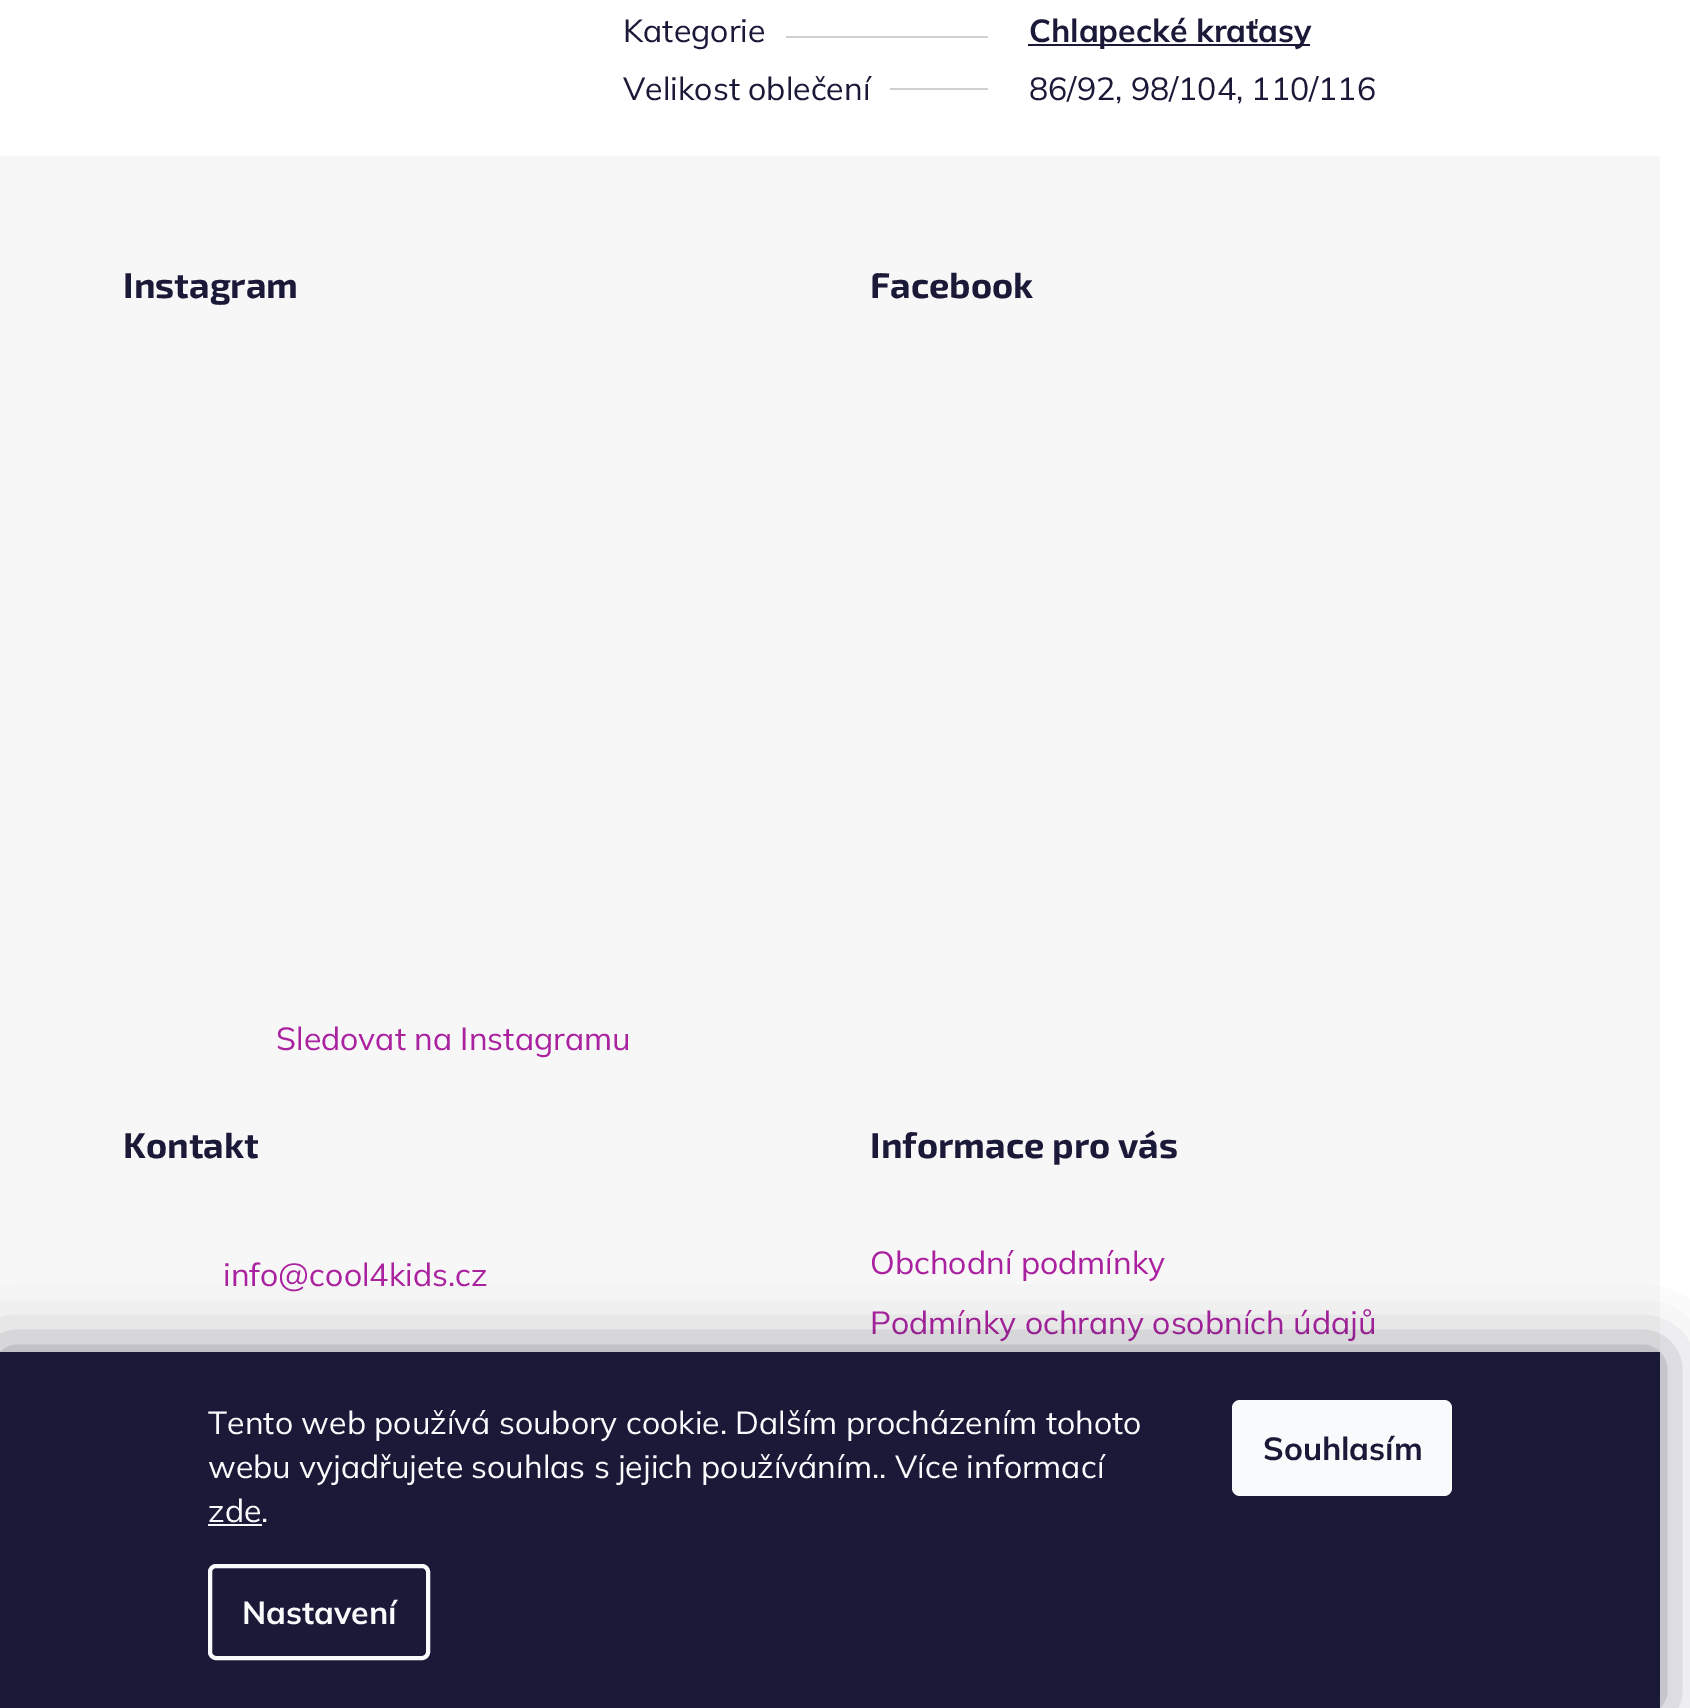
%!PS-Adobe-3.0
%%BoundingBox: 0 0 1690 1708
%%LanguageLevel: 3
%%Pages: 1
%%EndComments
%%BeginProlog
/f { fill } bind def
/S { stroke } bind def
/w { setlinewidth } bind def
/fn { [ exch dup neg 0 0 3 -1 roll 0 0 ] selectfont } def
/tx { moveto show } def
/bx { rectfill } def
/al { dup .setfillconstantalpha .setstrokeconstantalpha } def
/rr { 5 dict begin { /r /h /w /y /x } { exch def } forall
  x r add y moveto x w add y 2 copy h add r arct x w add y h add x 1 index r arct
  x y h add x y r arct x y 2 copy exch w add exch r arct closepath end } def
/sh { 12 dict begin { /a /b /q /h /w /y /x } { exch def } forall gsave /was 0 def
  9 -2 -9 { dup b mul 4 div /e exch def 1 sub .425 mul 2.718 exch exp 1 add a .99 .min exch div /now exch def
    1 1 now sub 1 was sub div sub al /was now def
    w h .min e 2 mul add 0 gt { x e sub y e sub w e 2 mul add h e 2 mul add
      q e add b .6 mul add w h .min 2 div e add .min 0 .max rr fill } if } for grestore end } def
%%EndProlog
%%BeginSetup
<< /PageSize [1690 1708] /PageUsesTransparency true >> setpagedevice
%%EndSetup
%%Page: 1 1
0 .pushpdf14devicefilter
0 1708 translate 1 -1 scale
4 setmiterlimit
1 setgray
0 0 1690 1708 bx
/Mulish-Regular 32 fn
0.102 0.098 0.216 setrgbcolor
(Kategorie) 623 42 tx
0.812 setgray
786 36 202 2 bx
0.102 0.098 0.216 setrgbcolor
1028 44 282 2 bx
/Mulish-Bold 32 fn
(Chlapecké kraťasy) 1029 42 tx
/Mulish-Regular 32 fn
(Velikost oblečení) 623 100 tx
0.812 setgray
890 88 98 2 bx
0.102 0.098 0.216 setrgbcolor
(86/92, 98/104, 110/116) 1029 100 tx
0.969 setgray
0 156 1660 1196 bx
/Exo2-Bold 36 fn
0.102 0.098 0.216 setrgbcolor
(Instagram) 123 298 tx
/Mulish-Regular 32 fn
0.667 0.133 0.624 setrgbcolor
(Sledovat na Instagramu) 276 1050 tx
/Exo2-Bold 36 fn
0.102 0.098 0.216 setrgbcolor
(Facebook) 870 298 tx
(Kontakt) 123 1158 tx
/Mulish-Regular 32 fn
0.667 0.133 0.624 setrgbcolor
(info@cool4kids.cz) 223 1286 tx
/Exo2-Bold 36 fn
0.102 0.098 0.216 setrgbcolor
(Informace pro vás) 870 1158 tx
/Mulish-Regular 32 fn
0.667 0.133 0.624 setrgbcolor
(Obchodní podmínky) 870 1274 tx
(Podmínky ochrany osobních údajů) 870 1334 tx
0.106 0.098 0.224 setrgbcolor
0 1352 1660 356 0 30 0.5 sh
0.102 0.098 0.216 setrgbcolor
0 1352 1660 356 bx
0.973 0.98 0.984 setrgbcolor
(Tento web používá soubory cookie. Dalším procházením tohoto) 208 1434 tx
(webu vyjadřujete souhlas s jejich používáním.. Více informací) 208 1478 tx
(zde.) 208 1522 tx
208 1524 54 2 bx
4 w
210 1566 218 92 6 rr S
/Mulish-Bold 32 fn
(Nastavení) 242 1624 tx
1232 1400 220 96 8 rr f
0.102 0.098 0.216 setrgbcolor
(Souhlasím) 1263 1460 tx
.poppdf14devicefilter showpage
%%EOF
